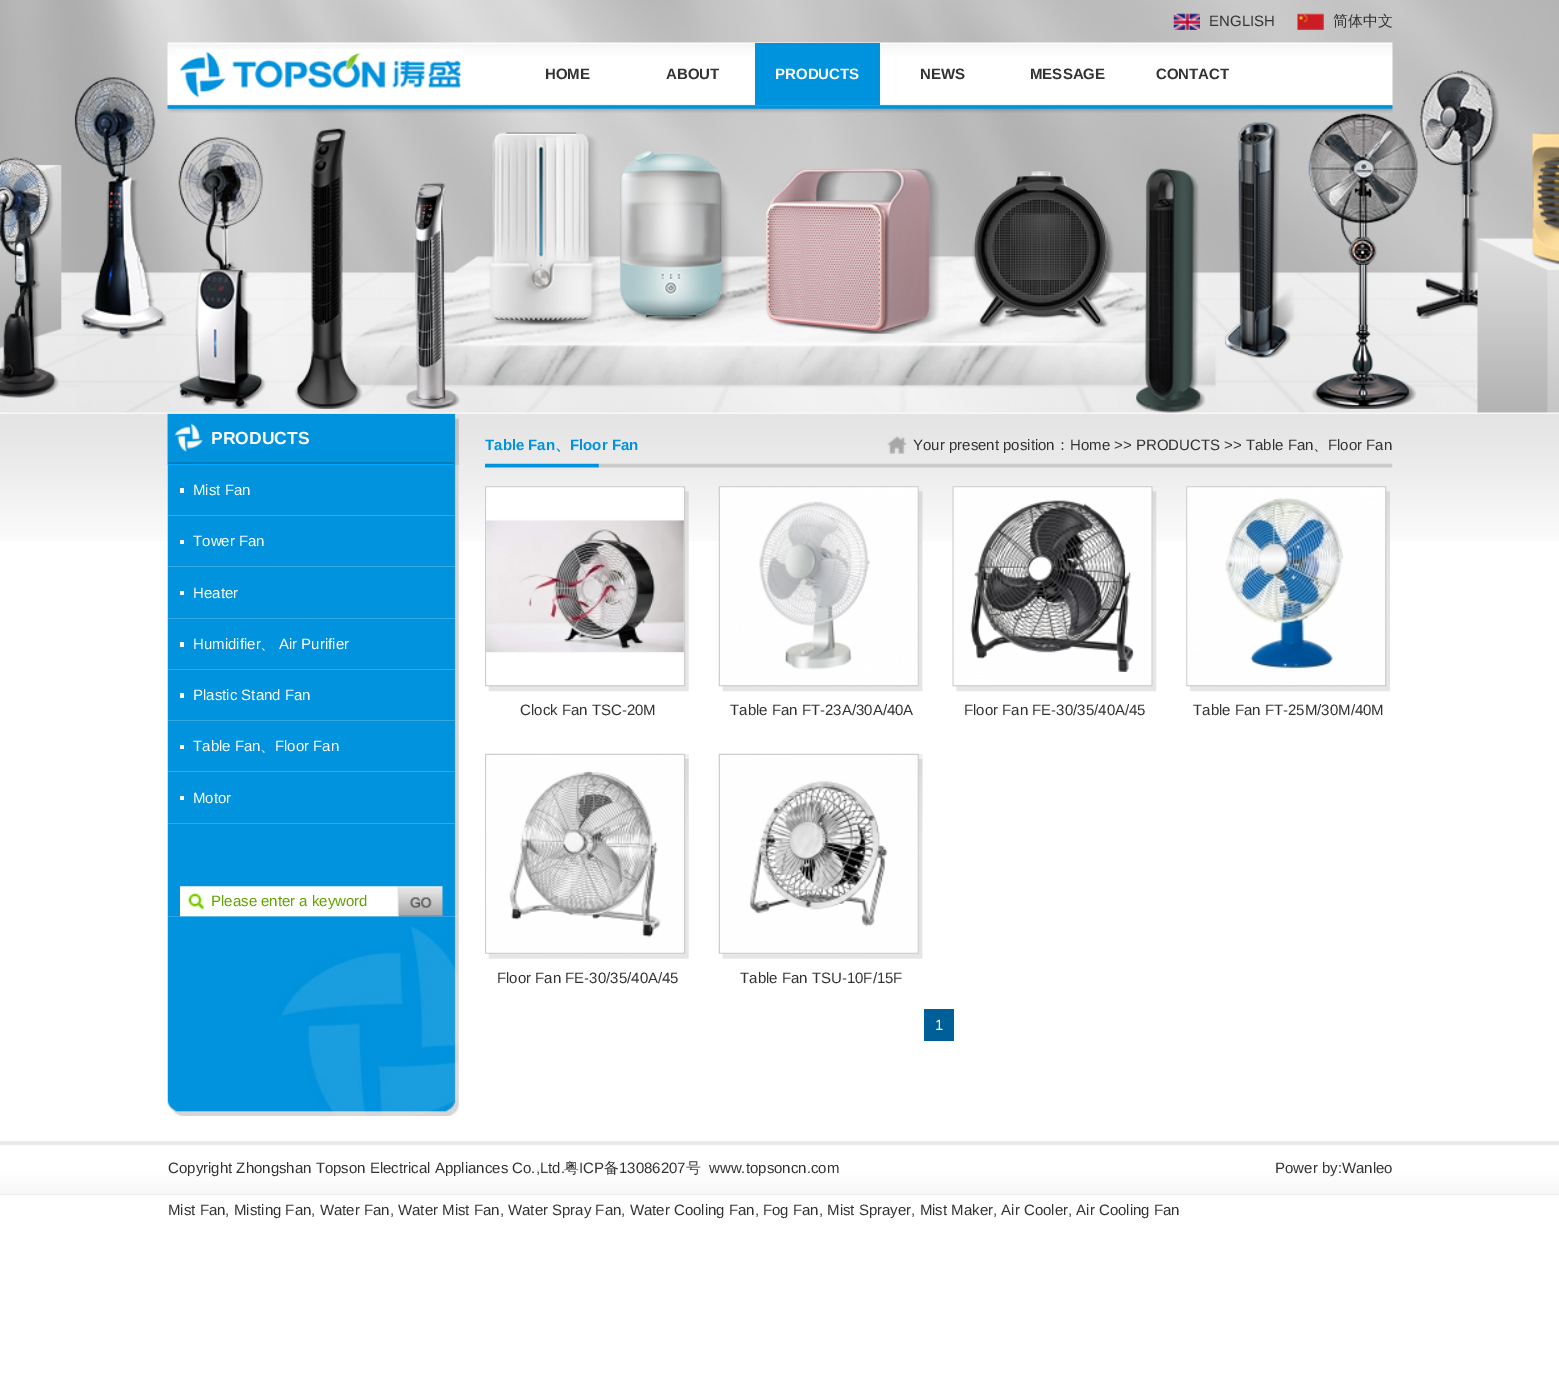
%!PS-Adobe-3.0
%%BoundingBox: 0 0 1559 1382
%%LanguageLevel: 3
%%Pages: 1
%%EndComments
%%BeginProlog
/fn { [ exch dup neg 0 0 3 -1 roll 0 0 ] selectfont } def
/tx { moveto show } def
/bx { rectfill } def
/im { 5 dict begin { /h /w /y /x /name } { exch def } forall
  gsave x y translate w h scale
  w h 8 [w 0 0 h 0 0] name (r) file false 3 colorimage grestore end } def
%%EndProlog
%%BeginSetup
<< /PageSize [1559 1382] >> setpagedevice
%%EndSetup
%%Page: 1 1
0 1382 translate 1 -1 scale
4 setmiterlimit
1 setgray
0 0 1559 1382 bx
(image0.raw) 0 412 1559 1 im
(image5.raw) 0 412 1559 129 im
(image1.raw) 0 0 1559 413 im
(image2.raw) 1173 13 27 17 im
/LiberationSans-Regular 15 fn
0.2 setgray
(ENGLISH) 1209 26 tx
(image3.raw) 1297 13 27 17 im
/WenQuanYiZenHei-Medium 15 fn
(简体中文) 1333 26 tx
(image4.raw) 167 42 1226 71 im
/LiberationSans-Bold 15 fn
(HOME) 545 79 tx
(ABOUT) 666 79 tx
0 0.576 0.867 setrgbcolor
755 43 125 62 bx
1 setgray
(PRODUCTS) 775 79 tx
0.2 setgray
(NEWS) 920 79 tx
(MESSAGE) 1030 79 tx
(CONTACT) 1156 79 tx
(image6.raw) 167 916 292 200 im
(image7.raw) 167 413 292 504 im
(image8.raw) 167 413 292 52 im
/LiberationSans-Bold 17.5 fn
1 setgray
(PRODUCTS) 211 444 tx
180 488 4 5 bx
0.2 0.663 0.894 setrgbcolor
168 515 287 1 bx
/LiberationSans-Regular 15 fn
1 setgray
(Mist Fan) 193 495 tx
180 540 4 4 bx
0.2 0.663 0.894 setrgbcolor
168 566 287 1 bx
1 setgray
(Tower Fan) 193 546 tx
180 591 4 4 bx
0.2 0.663 0.894 setrgbcolor
168 618 287 1 bx
1 setgray
(Heater) 193 598 tx
180 642 4 5 bx
0.2 0.663 0.894 setrgbcolor
168 669 287 1 bx
1 setgray
(Humidifier) 193 649 tx
/WenQuanYiZenHei-Medium 15 fn
(、) 260 649 tx
/LiberationSans-Regular 15 fn
(Air Purifier) 279 649 tx
180 693 4 5 bx
0.2 0.663 0.894 setrgbcolor
168 720 287 1 bx
1 setgray
(Plastic Stand Fan) 193 700 tx
180 745 4 4 bx
0.2 0.663 0.894 setrgbcolor
168 771 287 1 bx
1 setgray
(Table Fan) 193 751 tx
/WenQuanYiZenHei-Medium 15 fn
(、) 260 751 tx
/LiberationSans-Regular 15 fn
(Floor Fan) 275 751 tx
180 796 4 4 bx
0.2 0.663 0.894 setrgbcolor
168 823 287 1 bx
1 setgray
(Motor) 193 803 tx
(image9.raw) 180 886 263 31 im
0.38 0.635 0 setrgbcolor
(Please enter a keyword) 211 906 tx
(image10.raw) 485 463 908 5 im
/LiberationSans-Bold 15 fn
0 0.576 0.867 setrgbcolor
(Table Fan) 485 450 tx
/WenQuanYiZenHei-Bold 15 fn
(、) 555 450 tx
/LiberationSans-Bold 15 fn
(Floor Fan) 570 450 tx
(image11.raw) 887 436 20 18 im
/LiberationSans-Regular 15 fn
0.2 setgray
(Your present position) 913 450 tx
/WenQuanYiZenHei-Medium 15 fn
(：) 1055 450 tx
/LiberationSans-Regular 15 fn
(Home >> PRODUCTS >> Table Fan) 1070 450 tx
/WenQuanYiZenHei-Medium 15 fn
(、) 1313 450 tx
/LiberationSans-Regular 15 fn
(Floor Fan) 1328 450 tx
(image12.raw) 485 486 204 206 im
(image13.raw) 486 487 198 198 im
(Clock Fan TSC-20M) 520 715 tx
(image14.raw) 718 486 205 206 im
(image15.raw) 720 487 198 198 im
(Table Fan FT-23A/30A/40A) 730 715 tx
(image16.raw) 952 486 205 206 im
(image17.raw) 953 487 199 198 im
(Floor Fan FE-30/35/40A/45) 964 715 tx
(image18.raw) 1186 486 204 206 im
(image19.raw) 1187 487 198 198 im
(Table Fan FT-25M/30M/40M) 1193 715 tx
(image20.raw) 485 753 204 206 im
(image21.raw) 486 755 198 198 im
(Floor Fan FE-30/35/40A/45) 497 983 tx
(image22.raw) 718 753 205 206 im
(image23.raw) 720 755 198 198 im
(Table Fan TSU-10F/15F) 740 983 tx
0 0.369 0.6 setrgbcolor
924 1009 30 32 bx
1 setgray
(1) 935 1030 tx
(image24.raw) 0 1141 1559 54 im
0.2 setgray
(Copyright Zhongshan Topson Electrical Appliances Co.,Ltd.) 168 1173 tx
/WenQuanYiZenHei-Medium 15 fn
(粤) 564 1173 tx
/LiberationSans-Regular 15 fn
(ICP) 579 1173 tx
/WenQuanYiZenHei-Medium 15 fn
(备) 604 1173 tx
/LiberationSans-Regular 15 fn
(13086207) 619 1173 tx
/WenQuanYiZenHei-Medium 15 fn
(号) 686 1173 tx
/LiberationSans-Regular 15 fn
(www.topsoncn.com) 709 1173 tx
(Power by:Wanleo) 1275 1173 tx
(Mist Fan, Misting Fan, Water Fan, Water Mist Fan, Water Spray Fan, Water Cooling Fan, Fog Fan, Mist Sprayer, Mist Maker, Air Cooler, Air Cooling Fan) 168 1215 tx
showpage
%%EOF
